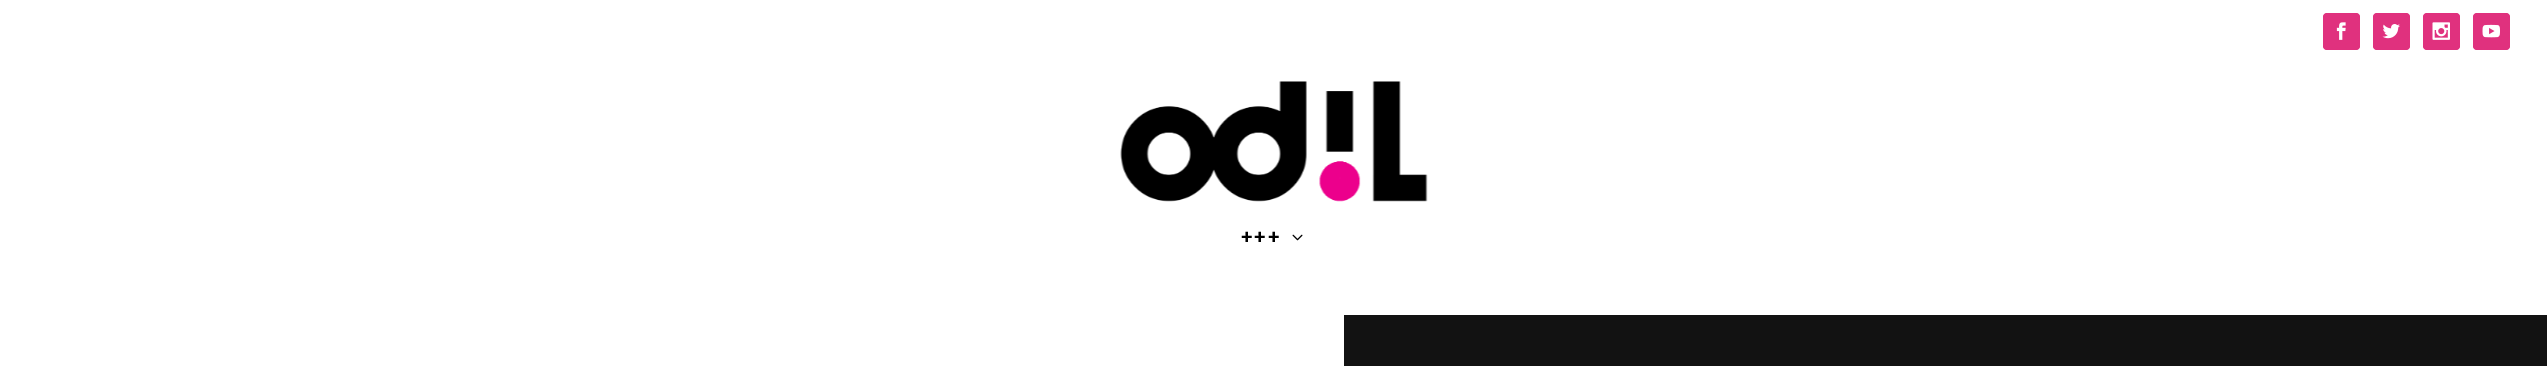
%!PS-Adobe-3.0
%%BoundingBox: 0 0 2547 366
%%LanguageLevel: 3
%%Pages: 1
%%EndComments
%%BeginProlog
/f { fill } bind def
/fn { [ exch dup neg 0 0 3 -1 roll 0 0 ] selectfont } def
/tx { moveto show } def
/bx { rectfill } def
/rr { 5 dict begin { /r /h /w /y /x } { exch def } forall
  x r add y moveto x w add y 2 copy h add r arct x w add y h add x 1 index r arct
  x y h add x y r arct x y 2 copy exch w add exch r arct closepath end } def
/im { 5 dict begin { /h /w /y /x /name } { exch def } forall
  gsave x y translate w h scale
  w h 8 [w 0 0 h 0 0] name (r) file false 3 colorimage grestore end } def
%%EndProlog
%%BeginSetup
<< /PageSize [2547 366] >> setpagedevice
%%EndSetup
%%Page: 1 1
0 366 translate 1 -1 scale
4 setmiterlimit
1 setgray
0 0 2547 366 bx
0.878 0.192 0.494 setrgbcolor
2323 13 37 37 4 rr f
(image0.raw) 2336 22 10 18 im
2373 13 37 37 4 rr f
(image1.raw) 2382 24 18 15 im
2423 13 37 37 4 rr f
(image2.raw) 2432 22 18 18 im
2473 13 37 37 4 rr f
(image3.raw) 2482 24 18 14 im
(image4.raw) 1120 81 308 121 im
/Poppins-SemiBold 20 fn
0 setgray
(+++) 1240 244 tx
(image5.raw) 1292 234 11 7 im
0.071 setgray
1344 315 1203 51 bx
showpage
%%EOF
